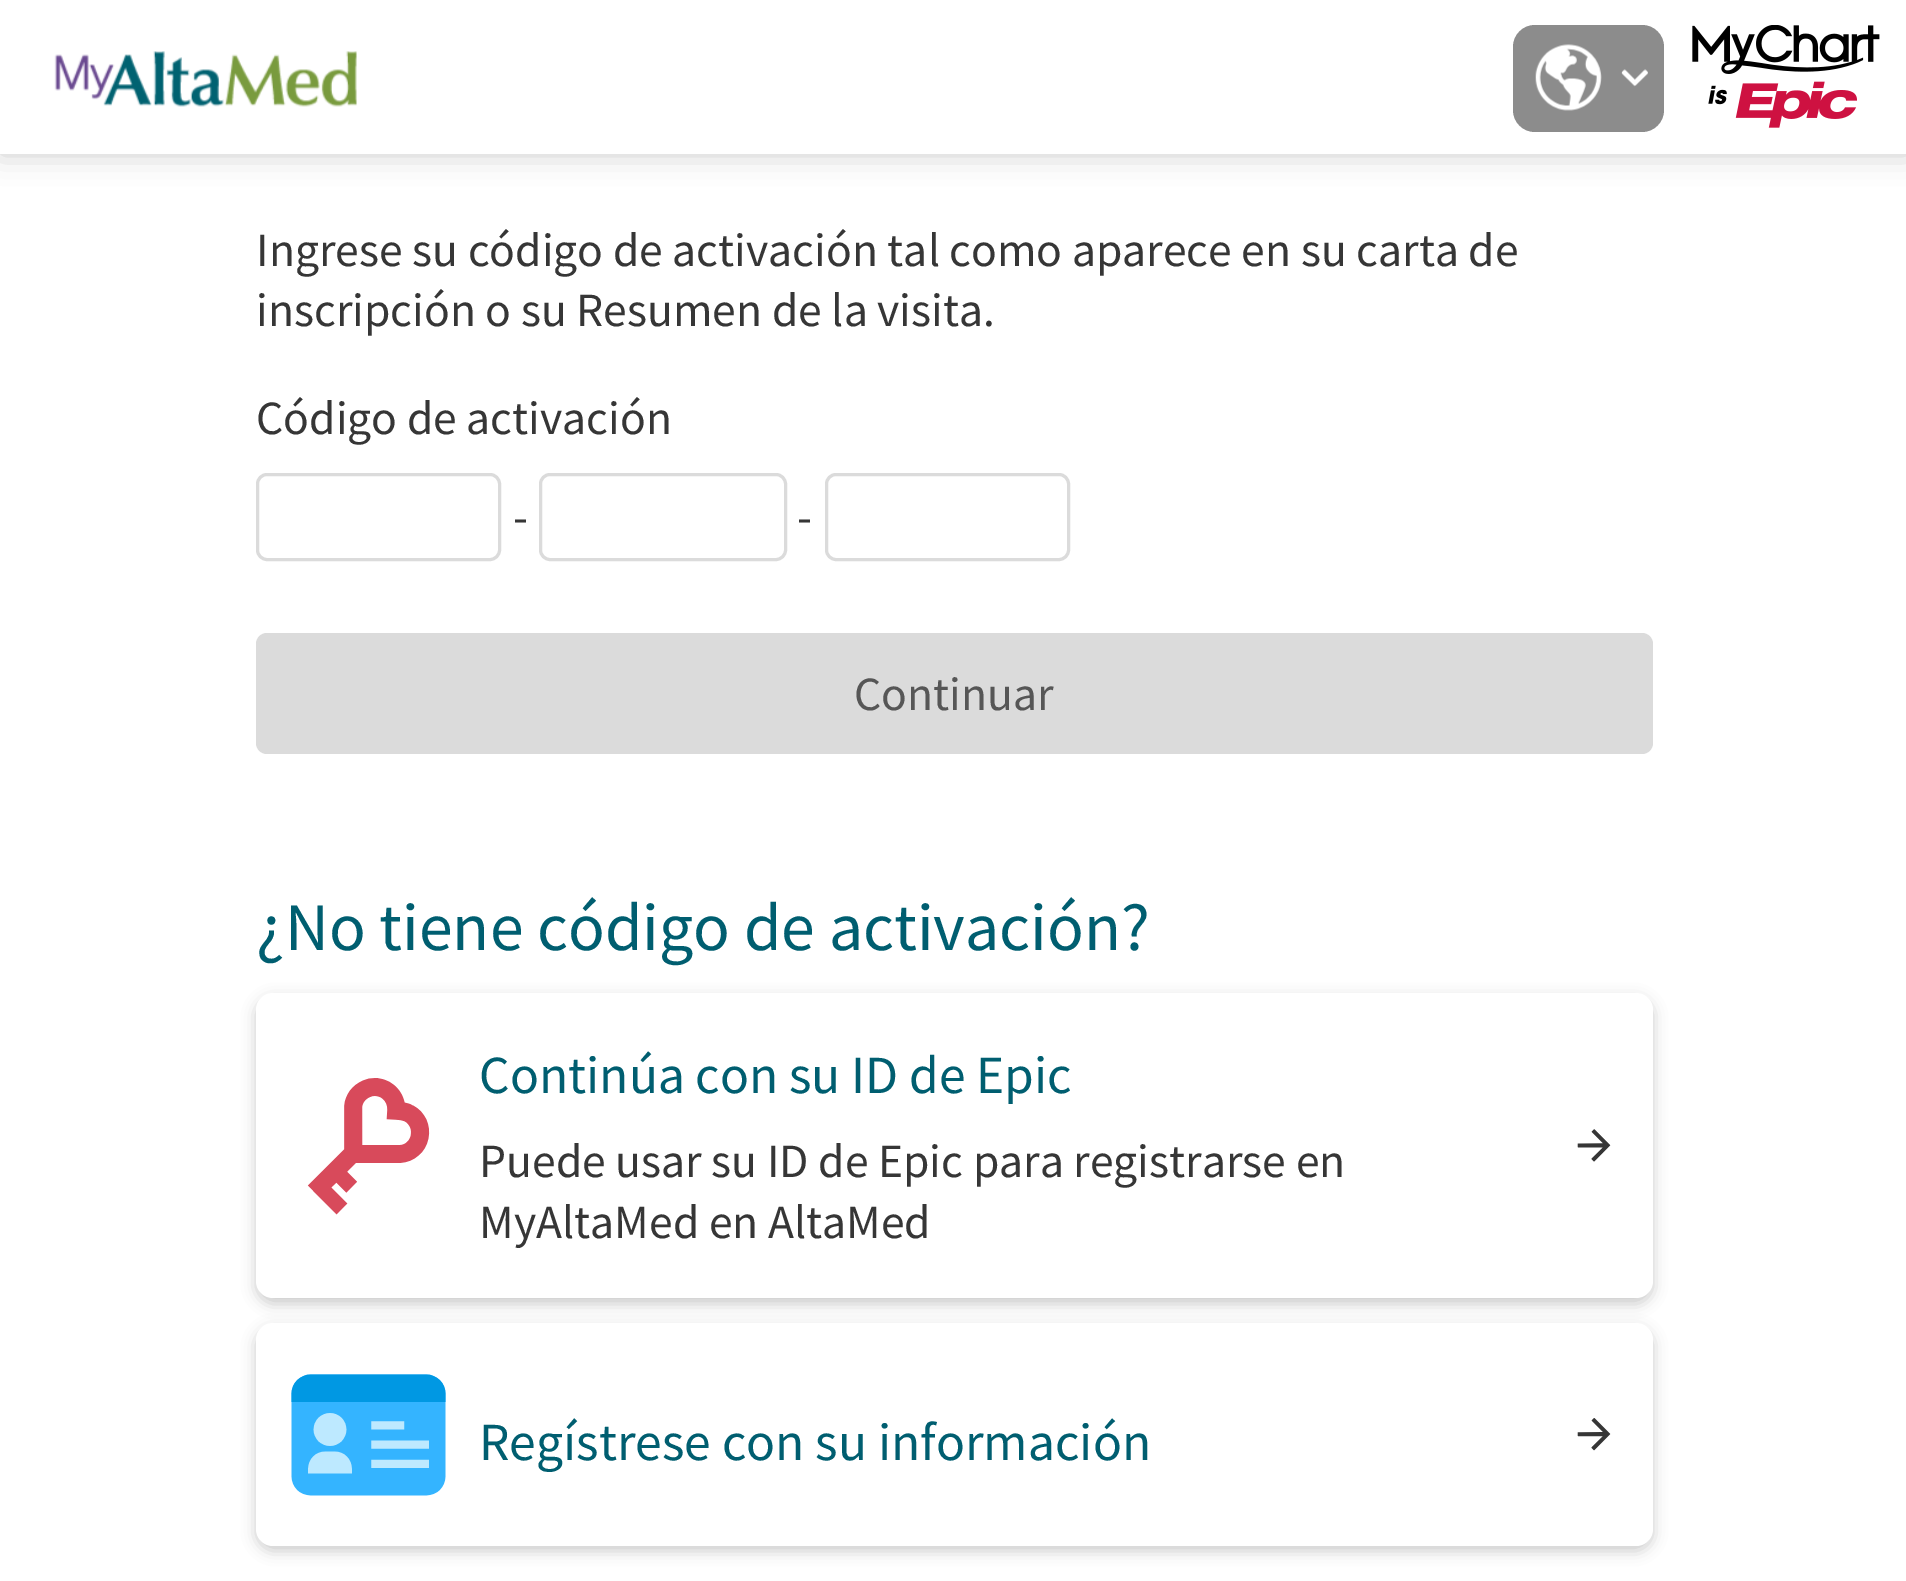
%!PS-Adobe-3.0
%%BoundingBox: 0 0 1906 1581
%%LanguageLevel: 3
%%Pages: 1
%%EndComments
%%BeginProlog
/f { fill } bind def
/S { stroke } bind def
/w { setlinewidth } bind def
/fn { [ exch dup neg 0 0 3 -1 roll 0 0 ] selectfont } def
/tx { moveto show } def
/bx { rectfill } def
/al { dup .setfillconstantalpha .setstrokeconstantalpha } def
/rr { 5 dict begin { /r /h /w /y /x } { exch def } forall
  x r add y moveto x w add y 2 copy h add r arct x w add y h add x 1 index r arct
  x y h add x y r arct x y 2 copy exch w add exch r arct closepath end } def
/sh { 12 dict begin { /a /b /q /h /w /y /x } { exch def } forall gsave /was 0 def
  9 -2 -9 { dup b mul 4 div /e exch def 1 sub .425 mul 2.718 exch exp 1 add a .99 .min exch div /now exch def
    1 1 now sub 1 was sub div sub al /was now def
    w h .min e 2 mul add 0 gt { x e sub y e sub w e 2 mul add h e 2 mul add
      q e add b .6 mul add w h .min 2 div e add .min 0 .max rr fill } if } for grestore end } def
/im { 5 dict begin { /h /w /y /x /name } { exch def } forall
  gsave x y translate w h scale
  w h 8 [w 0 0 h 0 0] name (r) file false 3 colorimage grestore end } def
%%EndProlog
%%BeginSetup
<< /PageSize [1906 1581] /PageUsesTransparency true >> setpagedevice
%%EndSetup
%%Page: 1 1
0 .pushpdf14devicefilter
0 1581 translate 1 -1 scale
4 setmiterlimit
1 setgray
0 0 1906 1581 bx
0 setgray
0 0 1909 154 0 14.5 0.2 sh
1 setgray
0 0 1906 154 bx
(image0.raw) 54 51 303 56 im
0.549 setgray
1513 25 151 107 22 rr f
(image1.raw) 1535 44 67 67 im
(image2.raw) 1621 69 27 18 im
(image3.raw) 1692 25 188 103 im
/SourceSansPro-Regular 47.7 fn
0.212 setgray
(Ingrese su código de activación tal como aparece en su carta de) 256 266 tx
(inscripción o su Resumen de la visita.) 256 326 tx
(Código de activación) 256 434 tx
0.859 setgray
3 w
257.5 474.5 242 85 9.5 rr S
0.212 setgray
(-) 513 533 tx
0.859 setgray
540.5 474.5 245 85 9.5 rr S
0.212 setgray
(-) 797 533 tx
0.859 setgray
826.5 474.5 242 85 9.5 rr S
256 633 1397 121 11 rr f
0.337 setgray
(Continuar) 854 710 tx
/SourceSansPro-Regular 67.9 fn
0 0.369 0.439 setrgbcolor
(¿No tiene código de activación?) 256 950 tx
0 setgray
256 998 1397 306 17 7 0.2 sh
1 setgray
256 993 1397 305 17 rr f
(image4.raw) 307 1078 123 137 im
/SourceSansPro-Regular 53.6 fn
0 0.369 0.439 setrgbcolor
(Continúa con su ID de Epic) 479 1093 tx
/SourceSansPro-Regular 47.7 fn
0.212 setgray
(Puede usar su ID de Epic para registrarse en) 479 1177 tx
(MyAltaMed en AltaMed) 479 1238 tx
(image5.raw) 1577 1129 34 33 im
0 setgray
256 1328 1397 223 17 7 0.2 sh
1 setgray
256 1323 1397 223 17 rr f
(image6.raw) 291 1374 155 122 im
/SourceSansPro-Regular 53.6 fn
0 0.369 0.439 setrgbcolor
(Regístrese con su información) 479 1460 tx
(image7.raw) 1577 1418 34 33 im
.poppdf14devicefilter showpage
%%EOF
